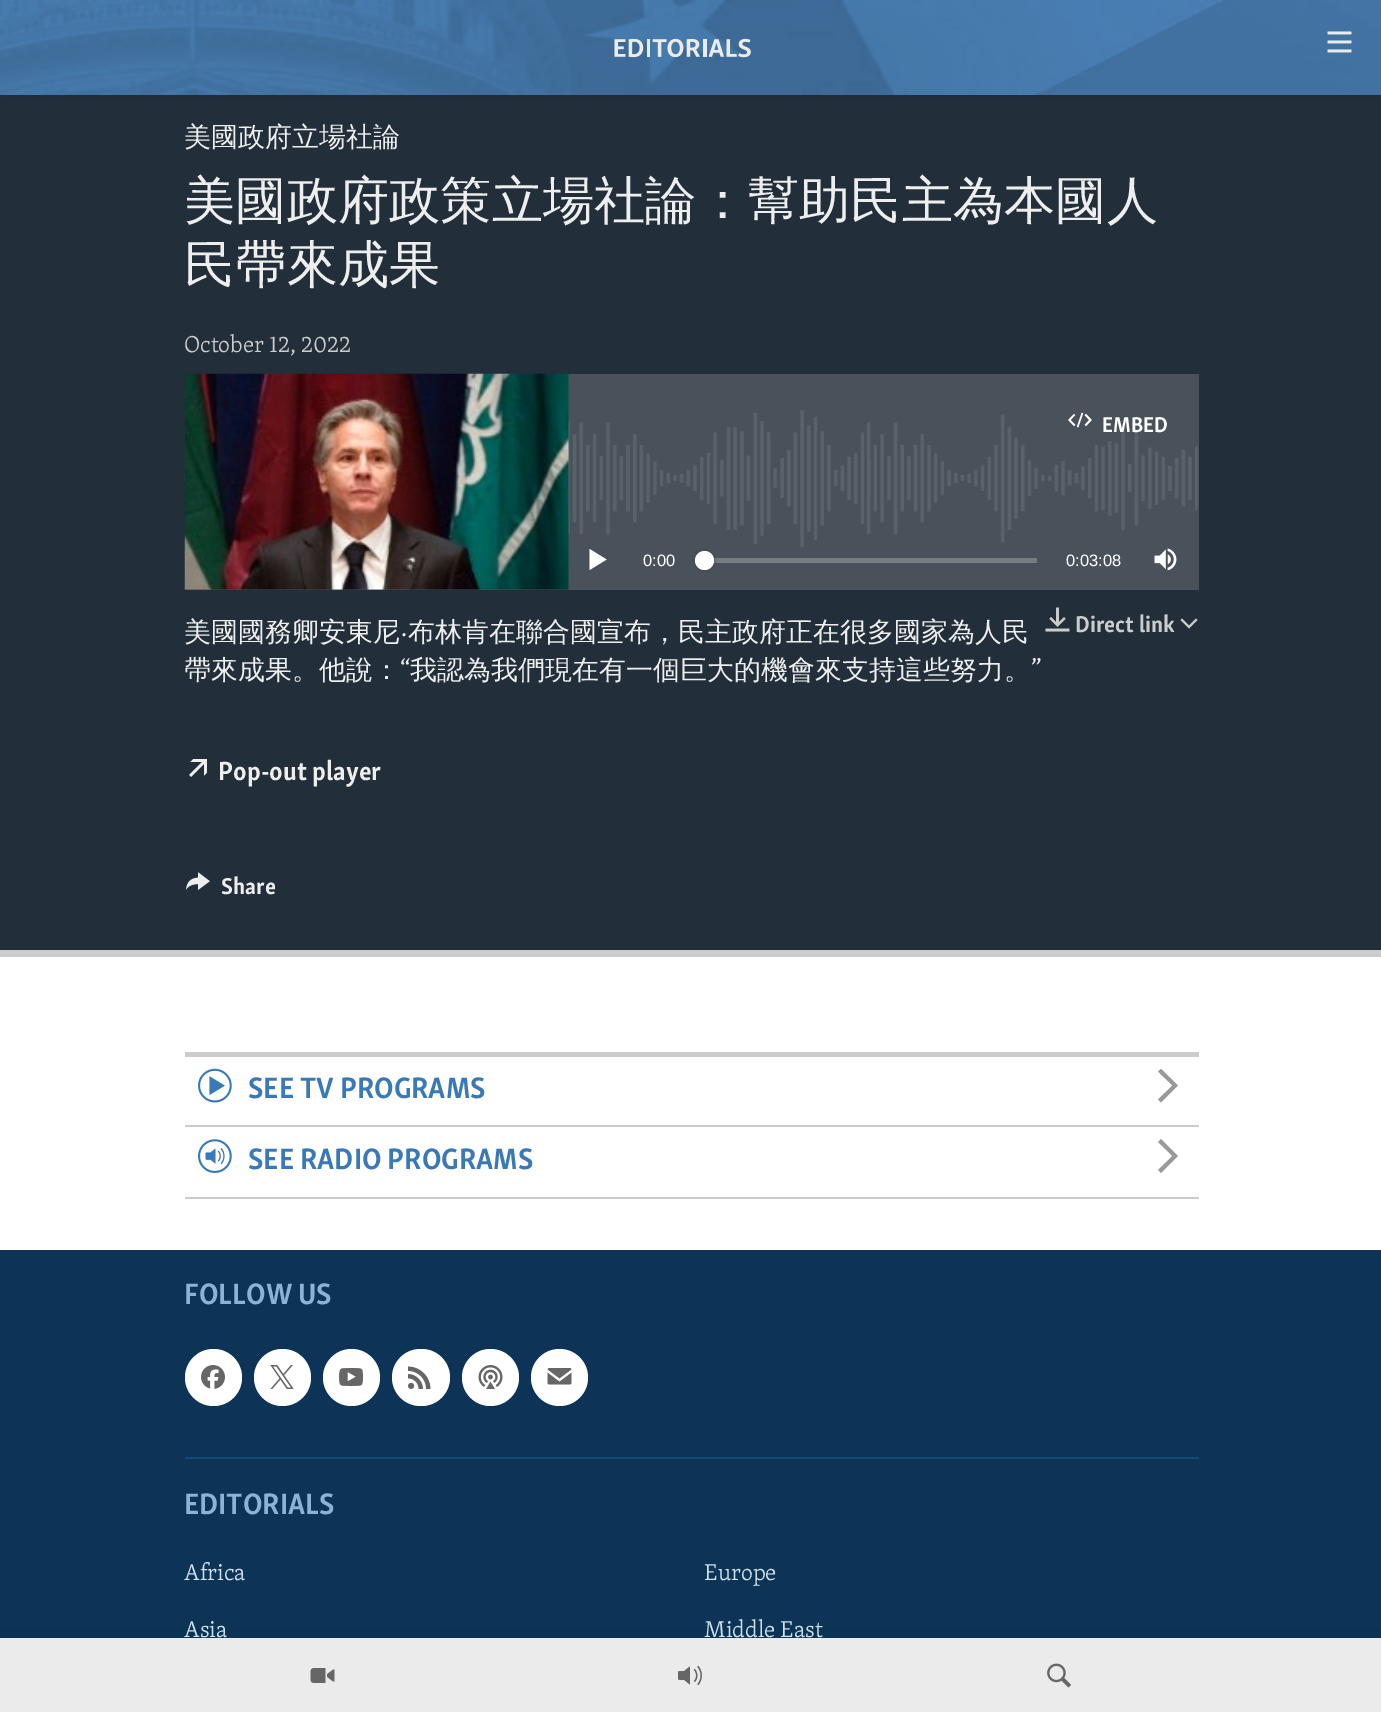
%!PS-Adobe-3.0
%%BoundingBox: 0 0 1381 1712
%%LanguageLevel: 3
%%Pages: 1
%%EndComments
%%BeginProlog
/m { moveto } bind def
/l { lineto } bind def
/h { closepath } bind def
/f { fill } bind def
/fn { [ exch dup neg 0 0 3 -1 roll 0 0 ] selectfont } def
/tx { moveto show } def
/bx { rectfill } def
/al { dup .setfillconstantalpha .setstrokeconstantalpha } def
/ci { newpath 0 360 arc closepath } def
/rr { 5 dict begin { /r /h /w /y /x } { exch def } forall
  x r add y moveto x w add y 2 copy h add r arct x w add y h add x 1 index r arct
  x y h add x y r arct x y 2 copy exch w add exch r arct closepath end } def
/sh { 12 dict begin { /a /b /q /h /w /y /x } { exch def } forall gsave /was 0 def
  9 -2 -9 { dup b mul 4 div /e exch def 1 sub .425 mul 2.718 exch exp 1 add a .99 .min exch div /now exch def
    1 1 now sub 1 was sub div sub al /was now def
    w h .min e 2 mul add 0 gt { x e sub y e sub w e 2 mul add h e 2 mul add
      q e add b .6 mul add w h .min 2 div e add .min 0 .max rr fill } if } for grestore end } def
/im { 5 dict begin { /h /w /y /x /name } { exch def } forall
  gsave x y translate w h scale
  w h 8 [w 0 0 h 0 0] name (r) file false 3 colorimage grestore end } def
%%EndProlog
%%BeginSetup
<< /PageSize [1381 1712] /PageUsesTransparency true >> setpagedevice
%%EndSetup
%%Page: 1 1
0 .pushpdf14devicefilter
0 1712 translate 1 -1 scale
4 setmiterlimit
1 setgray
0 0 1381 1712 bx
0.133 0.184 0.227 setrgbcolor
0 95 1381 855 bx
0 setgray
0 0 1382 95 0 15 0.1 sh
(image0.raw) 0 0 1381 95 im
(image1.raw) 614 38 137 20 im
(image2.raw) 1327 31 25 22 im
0.051 0.204 0.337 setrgbcolor
0 1250 1381 388 bx
0 setgray
0 1638 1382 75 0 15 0.1 sh
0.922 setgray
0 1638 1381 74 bx
(image3.raw) 310 1668 25 15 im
(image4.raw) 678 1665 24 21 im
(image5.raw) 1047 1663 24 25 im
0.8 setgray
0 950 1381 7 bx
/WenQuanYiZenHei-Medium 27 fn
0.933 setgray
(美國政府立場社論) 184 146 tx
/WenQuanYiZenHei-Medium 51.25 fn
(美國政府政策立場社論：幫助民主為本國人) 184 218 tx
(民帶來成果) 184 282 tx
/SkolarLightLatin-Light 23.5 fn
0.8 setgray
(October 12, 2022) 184 352 tx
0.286 0.322 0.353 setrgbcolor
185 374 1014 216 bx
(image6.raw) 184 410 1014 137 im
(image7.raw) 184 373 385 217 im
(image8.raw) 1068 412 24 16 im
/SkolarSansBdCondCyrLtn-Bold 22 fn
1 setgray
(EMBED) 1102 432 tx
589.5 570 m 606.5 559.5 l 589.5 549 l h f
/LiberationSans-Regular 16.5 fn
(0:00) 643 566 tx
0.467 0.49 0.514 setrgbcolor
705 558 332 5 bx
0.255 0.255 0.267 setrgbcolor
695 551 19 19 9.5 2 1 sh
1 setgray
704.5 560.5 9.5 ci f
(0:03:08) 1066 566 tx
(image9.raw) 1154 548 23 23 im
/WenQuanYiZenHei-Medium 27 fn
0.933 setgray
(美國國務卿安東尼 布林肯在聯合國宣布，民主政府正在很多國家為人民) 184 641 tx
/SkolarLightLatin-Light 27 fn
(·) 400 641 tx
/WenQuanYiZenHei-Medium 27 fn
(帶來成果。他說：) 184 679 tx
/SkolarLightLatin-Light 27 fn
(“) 400 679 tx
/WenQuanYiZenHei-Medium 27 fn
(我認為我們現在有一個巨大的機會來支持這些努力。) 410 679 tx
/SkolarLightLatin-Light 27 fn
(”) 1031 679 tx
(image10.raw) 1045 607 25 25 im
/SkolarSansBdCondCyrLtn-Bold 23.5 fn
0.8 setgray
(Direct link) 1075 632 tx
1180.5 620 m 1189 628.5 l 1197.5 620 l 1196 618.5 l 1189 625.5 l 1182 618.5 l h f
(image11.raw) 189 759 18 18 im
/SkolarSansBdCondCyrLtn-Bold 27 fn
0.933 setgray
(Pop-out player) 218 780 tx
(image12.raw) 186 872 24 18 im
/SkolarSansBdCondCyrLtn-Bold 23.5 fn
(Share) 221 894 tx
0.8 setgray
185 1052 1014 5 bx
185 1125 1014 2 bx
(image13.raw) 198 1068 34 35 im
/SkolarSansBdCondCyrLtn-Bold 30.4 fn
0.227 0.475 0.718 setrgbcolor
(SEE TV PROGRAMS) 248 1098 tx
0.6 setgray
1161 1102.5 m 1178 1085.5 l 1161 1069 l 1158 1071.5 l 1172.5 1085.5 l 1158 1099.5 l h f
0.8 setgray
185 1197 1014 2 bx
(image14.raw) 198 1139 34 34 im
0.227 0.475 0.718 setrgbcolor
(SEE RADIO PROGRAMS) 248 1169 tx
0.6 setgray
1161 1173 m 1178 1156 l 1161 1139 l 1158 1142 l 1172.5 1156 l 1158 1170 l h f
0.553 0.702 0.831 setrgbcolor
(FOLLOW US) 184 1304 tx
1 setgray
213.5 1377.5 28.5 ci f
(image15.raw) 201 1365 24 24 im
282.5 1377.5 28.5 ci f
(image16.raw) 270 1365 24 24 im
351.5 1377.5 28.5 ci f
(image17.raw) 339 1368 24 18 im
392 1349 58 57 28.5 rr f
(image18.raw) 408 1366 23 23 im
490.5 1377.5 28.5 ci f
(image19.raw) 478 1365 25 24 im
559.5 1377.5 28.5 ci f
(image20.raw) 547 1368 25 17 im
0.075 0.286 0.463 setrgbcolor
185 1457 1014 2 bx
0.553 0.702 0.831 setrgbcolor
(EDITORIALS) 184 1514 tx
/SkolarLightLatin-Light 23.5 fn
0.82 0.882 0.933 setrgbcolor
(Africa) 184 1580 tx
(Europe) 704 1580 tx
(Asia) 184 1637 tx
(Middle East) 704 1637 tx
.poppdf14devicefilter showpage
%%EOF
